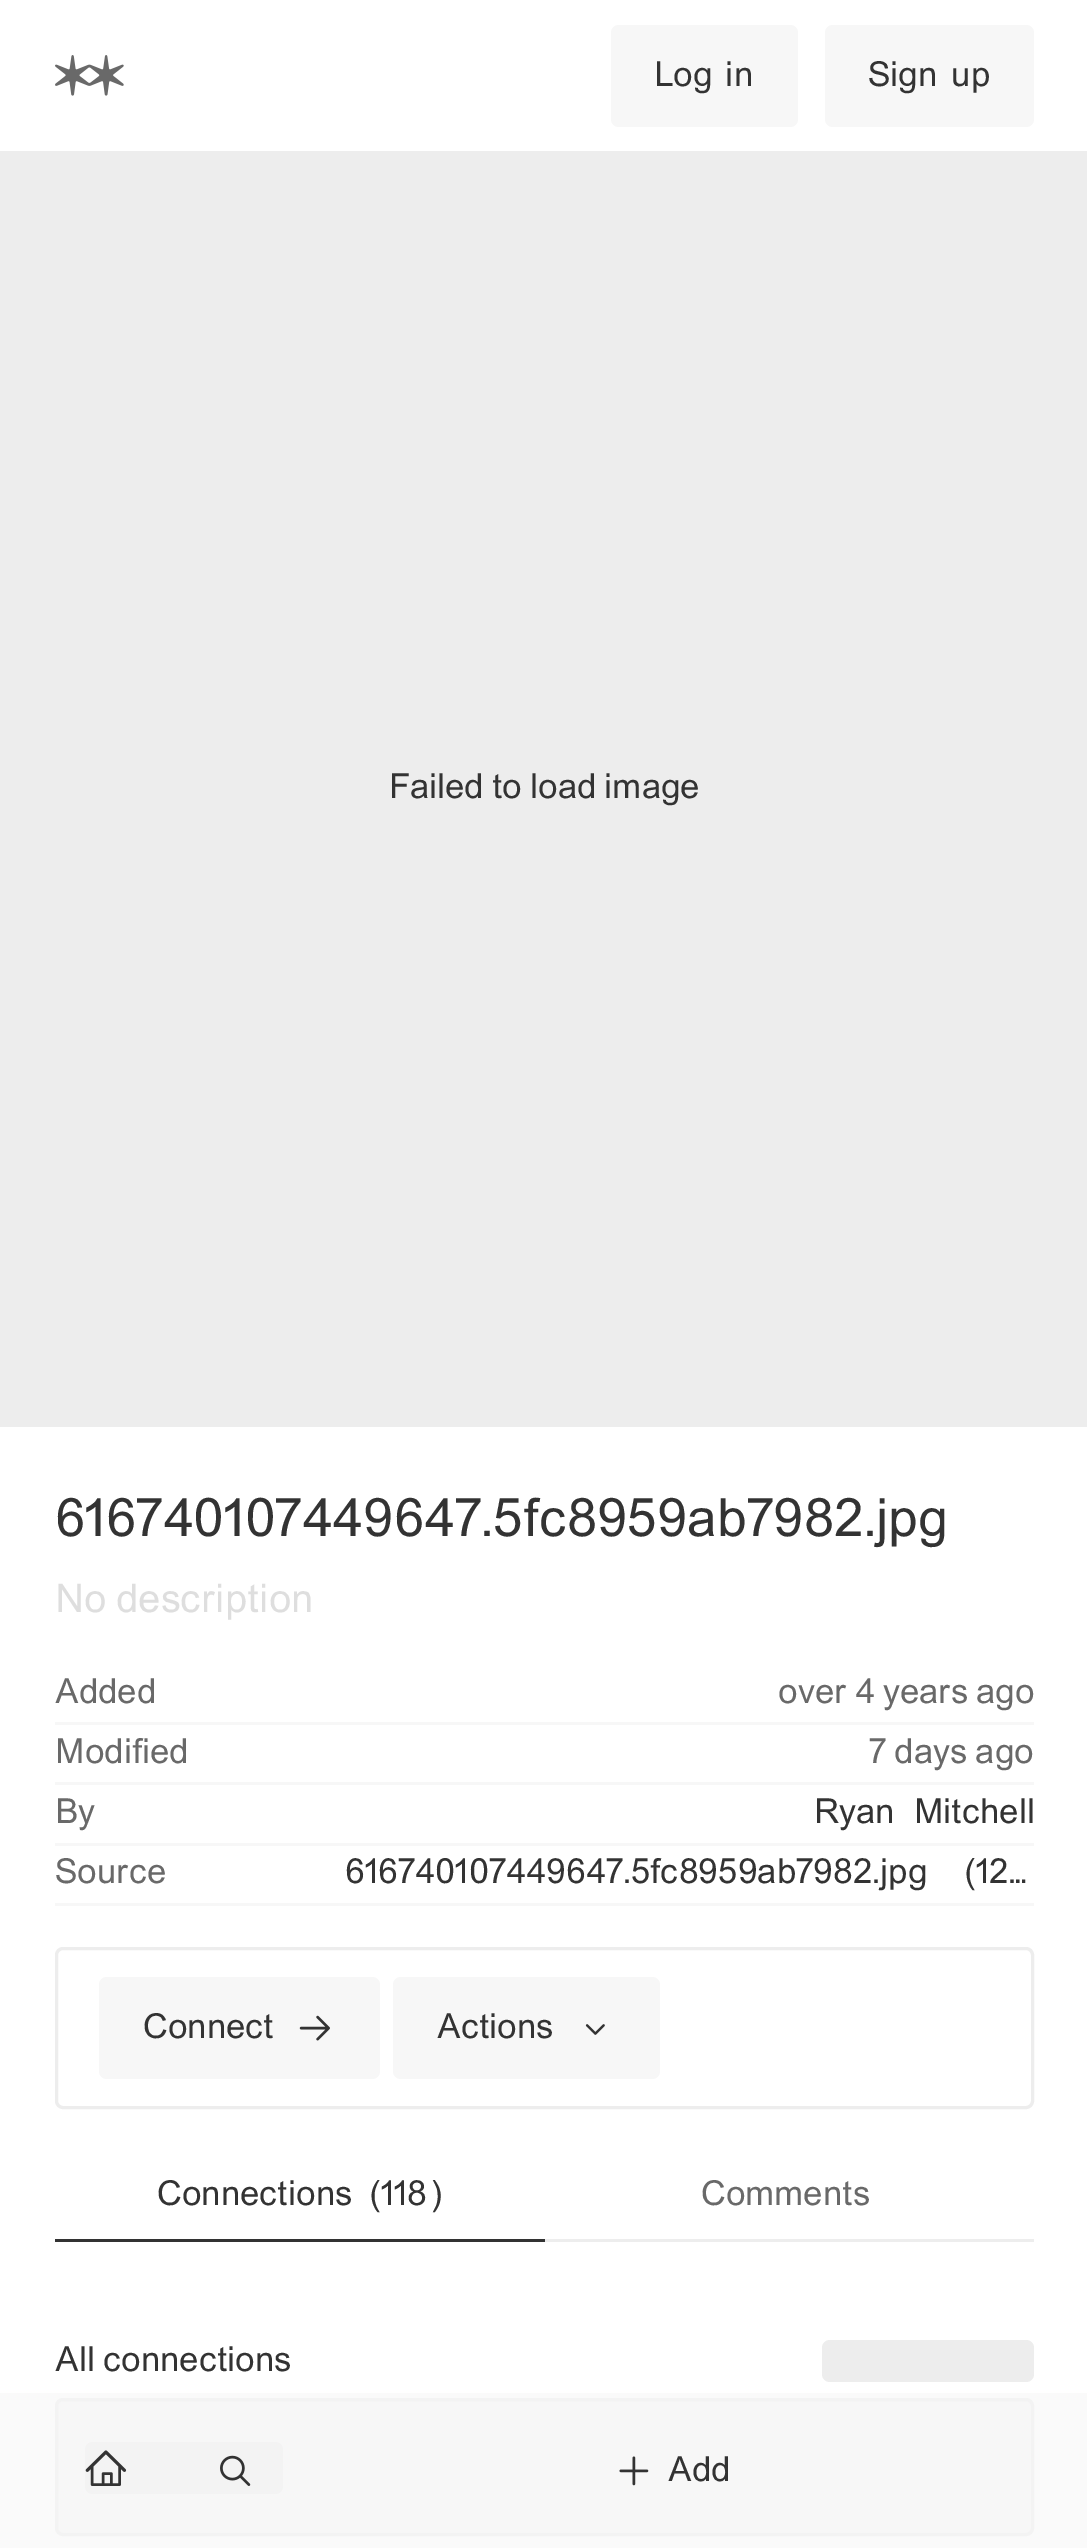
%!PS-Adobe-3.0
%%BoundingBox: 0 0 1087 2548
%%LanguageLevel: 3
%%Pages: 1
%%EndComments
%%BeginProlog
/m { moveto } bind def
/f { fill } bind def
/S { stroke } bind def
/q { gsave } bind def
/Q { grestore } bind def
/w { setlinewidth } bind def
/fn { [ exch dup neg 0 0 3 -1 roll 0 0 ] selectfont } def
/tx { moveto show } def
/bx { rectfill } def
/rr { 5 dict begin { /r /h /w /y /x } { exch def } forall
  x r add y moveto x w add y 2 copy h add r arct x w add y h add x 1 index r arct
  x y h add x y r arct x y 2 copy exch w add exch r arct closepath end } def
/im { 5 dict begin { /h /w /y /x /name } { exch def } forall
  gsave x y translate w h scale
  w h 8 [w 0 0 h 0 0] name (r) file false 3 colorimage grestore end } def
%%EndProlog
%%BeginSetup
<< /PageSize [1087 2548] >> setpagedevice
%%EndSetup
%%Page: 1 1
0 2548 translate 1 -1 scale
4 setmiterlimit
1 setgray
0 0 1087 2548 bx
0.98 setgray
0 2393 1087 155 bx
(image0.raw) 55 55 69 41 im
0.969 setgray
611 25 187 102 8 rr f
/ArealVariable-Regular 34.4 fn
0.2 setgray
654 86 m 5 0 32 (Log in) widthshow
0.969 setgray
825 25 209 102 8 rr f
0.2 setgray
868 86 m 6 0 32 (Sign up) widthshow
0.929 setgray
0 151 1087 1276 bx
0.2 setgray
(Failed to load image) 389 798 tx
/ArealVariable-Regular 52.75 fn
(616740107449647.5fc8959ab7982.jpg) 55 1536 tx
/ArealVariable-Regular 39.5 fn
0.871 setgray
(No description) 55 1612 tx
0.969 setgray
55 1722 979 3 bx
/ArealVariable-Regular 34.4 fn
0.412 setgray
(Added) 55 1703 tx
(over 4 years ago) 778 1703 tx
0.969 setgray
55 1782 979 3 bx
0.412 setgray
(Modified) 55 1763 tx
(7 days ago) 869 1763 tx
0.969 setgray
55 1843 979 3 bx
0.412 setgray
(By) 55 1823 tx
0.2 setgray
814 1823 m 11 0 32 (Ryan Mitchell) widthshow
0.969 setgray
55 1903 979 3 bx
0.412 setgray
(Source) 55 1883 tx
0.2 setgray
345 1883 m 30 0 32 (616740107449647.5fc8959ab7982.jpg \(12…) widthshow
0.929 setgray
3 w
56.5 1948.5 976 159 6.5 rr S
0.969 setgray
99 1977 281 102 8 rr f
0.2 setgray
(Connect) 143 2038 tx
(image1.raw) 299 2015 31 26 im
0.969 setgray
393 1977 267 102 8 rr f
0.2 setgray
(Actions) 437 2038 tx
(image2.raw) 585 2024 20 11 im
55 2239 490 3 bx
(Connections) 157 2205 tx
(\() 370 2205 tx
(118) 381 2205 tx
(\)) 432 2205 tx
0.929 setgray
545 2239 489 3 bx
0.412 setgray
(Comments) 701 2205 tx
0.2 setgray
(All connections) 55 2371 tx
0.929 setgray
822 2340 212 42 8 rr f
0.969 setgray
56.5 2399.5 976 135 6.5 rr q f Q
0.953 setgray
S
85 2442 198 52 8 rr f
(image3.raw) 85 2450 42 36 im
(image4.raw) 220 2455 31 31 im
(image5.raw) 619 2456 30 30 im
0.2 setgray
(Add) 668 2481 tx
showpage
%%EOF
